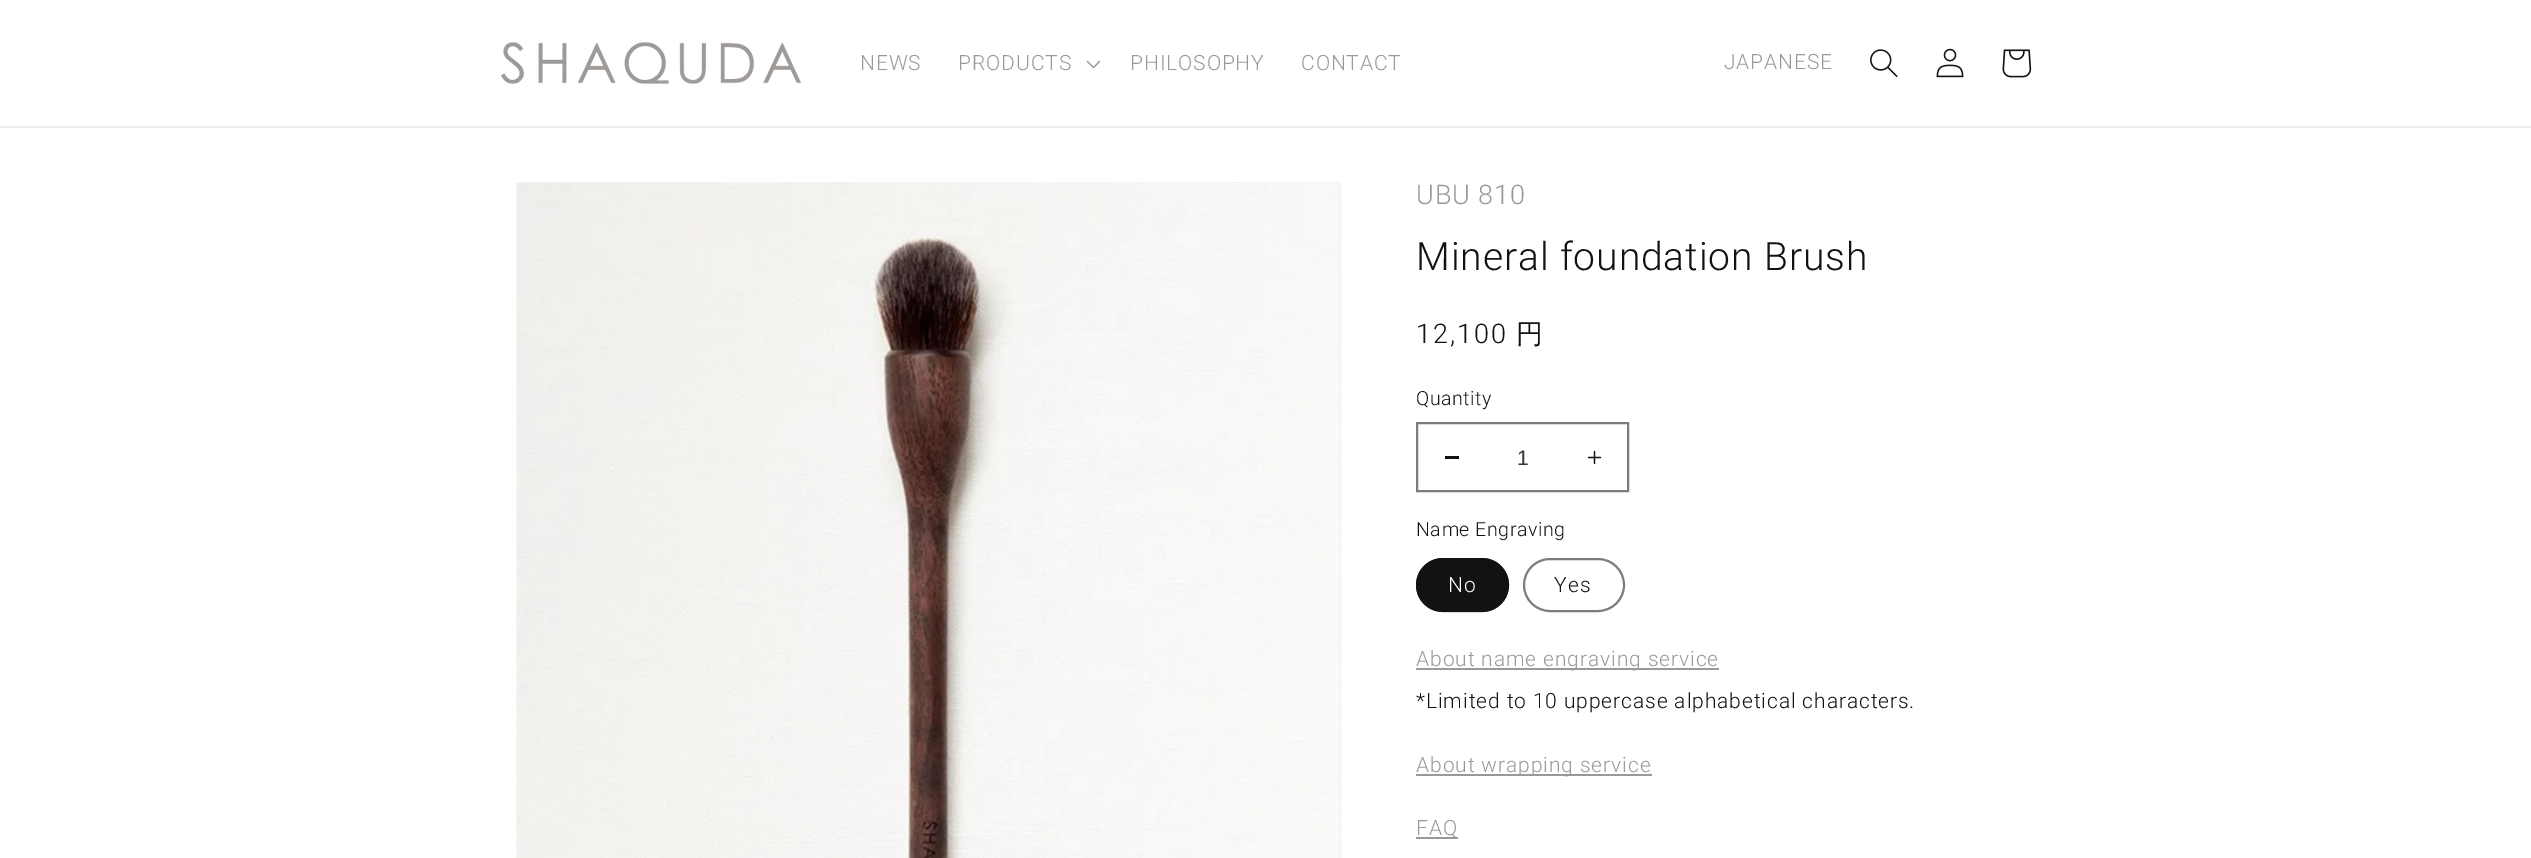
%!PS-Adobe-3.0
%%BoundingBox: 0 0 2531 858
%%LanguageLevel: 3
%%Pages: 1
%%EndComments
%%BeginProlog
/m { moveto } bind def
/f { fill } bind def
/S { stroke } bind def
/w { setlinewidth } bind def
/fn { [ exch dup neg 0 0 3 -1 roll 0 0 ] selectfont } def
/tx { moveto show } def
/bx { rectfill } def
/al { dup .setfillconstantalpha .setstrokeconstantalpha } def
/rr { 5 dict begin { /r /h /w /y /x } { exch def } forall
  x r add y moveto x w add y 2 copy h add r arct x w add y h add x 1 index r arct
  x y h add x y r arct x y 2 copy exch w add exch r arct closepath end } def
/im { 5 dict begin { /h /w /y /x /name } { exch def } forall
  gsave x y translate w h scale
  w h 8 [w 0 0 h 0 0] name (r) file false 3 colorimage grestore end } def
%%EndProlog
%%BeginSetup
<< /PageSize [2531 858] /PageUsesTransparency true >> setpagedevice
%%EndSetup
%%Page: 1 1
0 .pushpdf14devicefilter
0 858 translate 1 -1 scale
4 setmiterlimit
1 setgray
0 0 2531 858 bx
0.925 setgray
0 126 2531 2 bx
(image0.raw) 501 42 300 42 im
/Roboto-Light 21 fn
0.6 setgray
860 70 m 0.9 0 (NEWS) ashow
958 70 m 0.9 0 (PRODUCTS) ashow
(image1.raw) 1086 60 15 9 im
1130 70 m 0.9 0 (PHILOSOPHY) ashow
1301 70 m 0.9 0 (CONTACT) ashow
1724 69 m 0.9 0 (JAPANESE) ashow
(image2.raw) 1870 49 28 28 im
(image3.raw) 1936 48 28 30 im
(image4.raw) 2002 49 30 29 im
0.953 setgray
2 w
517 183 823 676 rectstroke
(image5.raw) 518 183 822 675 im
/Roboto-Light 27 fn
0.6 setgray
1416 204 m 0.9 0 (UBU 810) ashow
/Roboto-Light 39 fn
0.071 setgray
1416 270 m 0.9 0 (Mineral foundation Brush) ashow
/Roboto-Light 27 fn
1416 343 m 2 0 (12,100) ashow
/WenQuanYiZenHei-Medium 27 fn
1516 343 m 2 0 (円) ashow
/Roboto-Light 19.5 fn
1416 405 m 0.6 0 (Quantity) ashow
1445 456 14 3 bx
(image6.raw) 1587 450 15 15 im
0.49 setgray
1417 423 211 68 rectstroke
/LiberationSans-Regular 21 fn
0.212 setgray
(1) 1517 465 tx
/Roboto-Light 19.5 fn
0.071 setgray
1416 536 m 0.6 0 (Name Engraving) ashow
1416 558 93 54 27 rr f
0.55 al
1417 559 91 52 26 rr S
/Roboto-Light 21 fn
1 al
1 setgray
1448 592 m 1.5 0 (No) ashow
0.49 setgray
1524 559 100 52 26 rr S
0.071 setgray
1554 592 m 1.5 0 (Yes) ashow
0.6 setgray
1416 668 303 2 bx
1416 666 m 0.9 0 (About name engraving service) ashow
0.071 setgray
1416 708 m 0.9 0 (*Limited to 10 uppercase alphabetical characters.) ashow
0.6 setgray
1416 774 236 2 bx
1416 772 m 0.9 0 (About wrapping service) ashow
1416 837 42 2 bx
1416 835 m 0.9 0 (FAQ) ashow
.poppdf14devicefilter showpage
%%EOF
